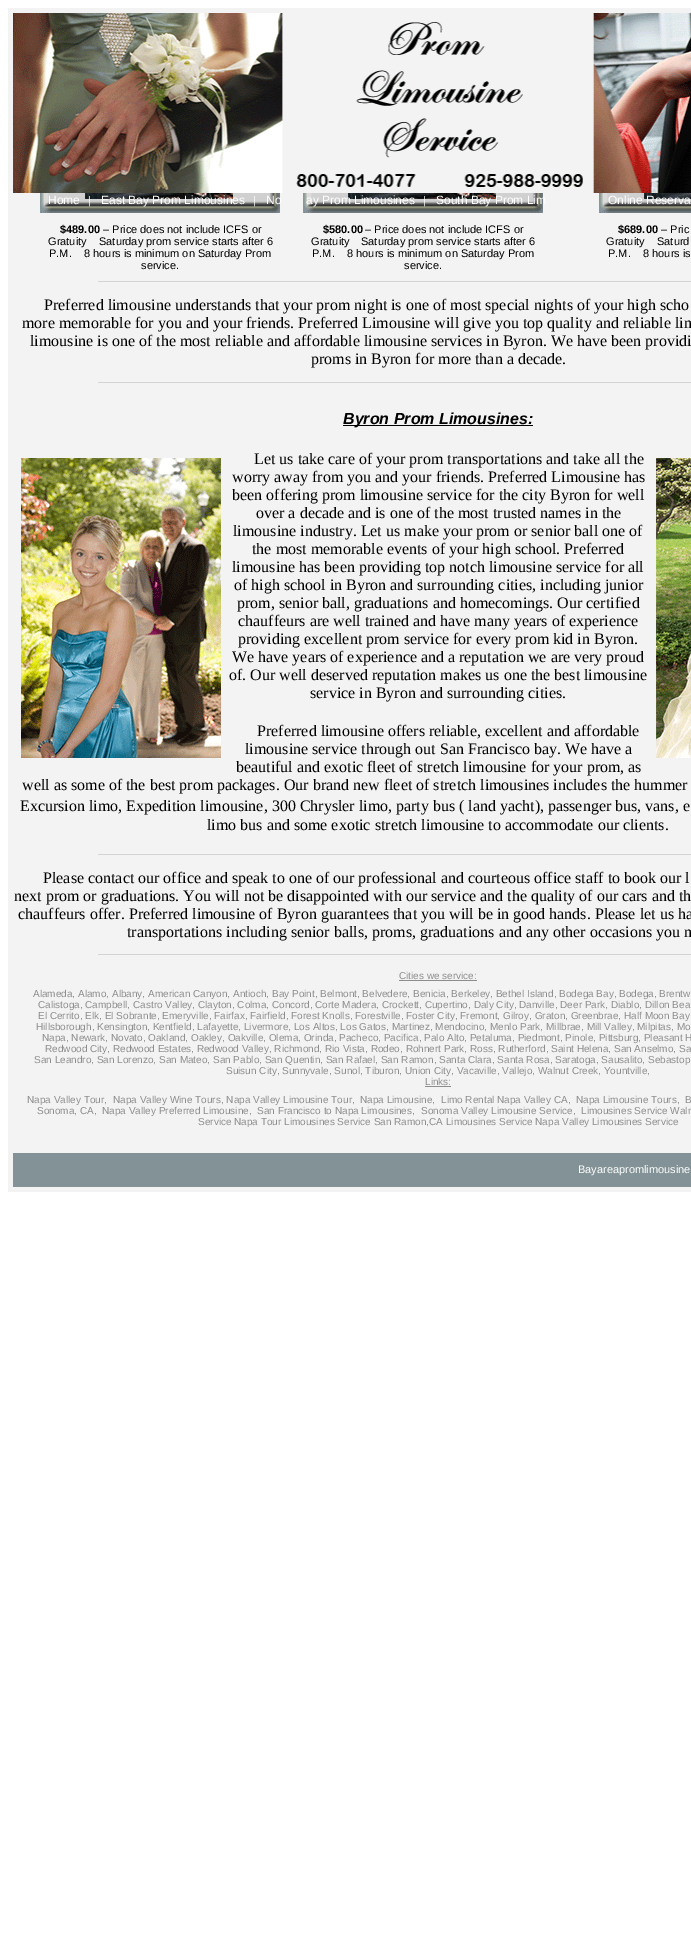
%!PS-Adobe-3.0
%%BoundingBox: 0 0 691 1947
%%LanguageLevel: 3
%%Pages: 1
%%EndComments
%%BeginProlog
/fn { [ exch dup neg 0 0 3 -1 roll 0 0 ] selectfont } def
/tx { moveto show } def
/bx { rectfill } def
/im { 5 dict begin { /h /w /y /x /name } { exch def } forall
  gsave x y translate w h scale
  w h 8 [w 0 0 h 0 0] name (r) file false 3 colorimage grestore end } def
%%EndProlog
%%BeginSetup
<< /PageSize [691 1947] >> setpagedevice
%%EndSetup
%%Page: 1 1
0 1947 translate 1 -1 scale
4 setmiterlimit
1 setgray
0 0 691 1947 bx
0.953 setgray
8 8 683 1184 bx
(image0.raw) 13 13 678 180 im
(image1.raw) 40 193 240 20 im
/LiberationSans-Regular 12 fn
1 setgray
(Home) 48 204 tx
/LiberationSans-Regular 11 fn
(|) 88 204 tx
/LiberationSans-Regular 12 fn
(East Bay Prom Limousines) 101 204 tx
/LiberationSans-Regular 11 fn
(|) 253 204 tx
/LiberationSans-Regular 12 fn
(No) 266 204 tx
(image1.raw) 303 193 240 20 im
(ay Prom Limousines) 306 204 tx
/LiberationSans-Regular 11 fn
(|) 423 204 tx
/LiberationSans-Regular 12 fn
(South Bay Prom Lim) 436 204 tx
(image2.raw) 599 193 92 20 im
(Online Reserva) 608 204 tx
/LiberationSans-Bold 11 fn
0 setgray
($489.00) 60 233 tx
/LiberationSans-Regular 11 fn
(– Price does not include ICFS or) 103 233 tx
(Gratuity) 48 245 tx
(Saturday prom service starts after 6) 99 245 tx
(P.M.) 49 257 tx
(8 hours is minimum on Saturday Prom) 84 257 tx
(service.) 141 269 tx
/LiberationSans-Bold 11 fn
($580.00) 323 233 tx
/LiberationSans-Regular 11 fn
(– Price does not include ICFS or) 365 233 tx
(Gratuity) 311 245 tx
(Saturday prom service starts after 6) 361 245 tx
(P.M.) 312 257 tx
(8 hours is minimum on Saturday Prom) 347 257 tx
(service.) 404 269 tx
/LiberationSans-Bold 11 fn
($689.00) 618 233 tx
/LiberationSans-Regular 11 fn
(– Pric) 661 233 tx
(Gratuity) 606 245 tx
(Saturd) 657 245 tx
(P.M.) 608 257 tx
(8 hours is) 643 257 tx
0.827 setgray
98 281 593 1 bx
/LiberationSerif-Regular 16 fn
0 setgray
(Preferred limousine understands that your prom night is one of most special nights of your high scho) 44 310 tx
(more memorable for you and your friends. Preferred Limousine will give you top quality and reliable lim) 22 328 tx
(limousine is one of the most reliable and affordable limousine services in Byron. We have been providi) 30 346 tx
(proms in Byron for more than a decade.) 311 364 tx
0.827 setgray
98 382 593 1 bx
0 setgray
343 425 190 1 bx
/LiberationSans-BoldItalic 16 fn
(Byron Prom Limousines:) 343 424 tx
(image3.raw) 21 458 200 300 im
/LiberationSerif-Regular 16 fn
(Let us take care of your prom transportations and take all the) 254 464 tx
(worry away from you and your friends. Preferred Limousine has) 232 482 tx
(been offering prom limousine service for the city Byron for well) 232 500 tx
(over a decade and is one of the most trusted names in the) 256 518 tx
(limousine industry. Let us make your prom or senior ball one of) 233 536 tx
(the most memorable events of your high school. Preferred) 252 554 tx
(limousine has been providing top notch limousine service for all) 232 572 tx
(of high school in Byron and surrounding cities, including junior) 234 590 tx
(prom, senior ball, graduations and homecomings. Our certified) 237 608 tx
(chauffeurs are well trained and have many years of experience) 238 626 tx
(providing excellent prom service for every prom kid in Byron.) 238 644 tx
(We have years of experience and a reputation we are very proud) 232 662 tx
(of. Our well deserved reputation makes us one the best limousine) 229 680 tx
(service in Byron and surrounding cities.) 310 698 tx
(image4.raw) 656 458 35 300 im
(Preferred limousine offers reliable, excellent and affordable) 257 736 tx
(limousine service through out San Francisco bay. We have a) 245 754 tx
(beautiful and exotic fleet of stretch limousine for your prom, as) 236 772 tx
(well as some of the best prom packages. Our brand new fleet of stretch limousines includes the hummer) 22 790 tx
(Excursion limo, Expedition limousine, 300 Chrysler limo, party bus \( land yacht\), passenger bus, vans, e) 20 811 tx
(limo bus and some exotic stretch limousine to accommodate our clients.) 207 830 tx
0.827 setgray
98 854 593 1 bx
0 setgray
(Please contact our office and speak to one of our professional and courteous office staff to book our l) 43 883 tx
(next prom or graduations. You will not be disappointed with our service and the quality of our cars and th) 14 901 tx
(chauffeurs offer. Preferred limousine of Byron guarantees that you will be in good hands. Please let us ha) 18 919 tx
(transportations including senior balls, proms, graduations and any other occasions you m) 127 937 tx
0.827 setgray
98 954 593 1 bx
/LiberationSans-Regular 10 fn
0.553 setgray
(Cities we service:) 399 979 tx
399 980 78 1 bx
(Alameda, Alamo, Albany, American Canyon, Antioch, Bay Point, Belmont, Belvedere, Benicia, Berkeley, Bethel Island, Bodega Bay, Bodega, Brentw) 33 997 tx
(Calistoga, Campbell, Castro Valley, Clayton, Colma, Concord, Corte Madera, Crockett, Cupertino, Daly City, Danville, Deer Park, Diablo, Dillon Bea) 38 1008 tx
(El Cerrito, Elk, El Sobrante, Emeryville, Fairfax, Fairfield, Forest Knolls, Forestville, Foster City, Fremont, Gilroy, Graton, Greenbrae, Half Moon Bay,) 38 1019 tx
(Hillsborough, Kensington, Kentfield, Lafayette, Livermore, Los Altos, Los Gatos, Martinez, Mendocino, Menlo Park, Millbrae, Mill Valley, Milpitas, Mo) 36 1030 tx
(Napa, Newark, Novato, Oakland, Oakley, Oakville, Olema, Orinda, Pacheco, Pacifica, Palo Alto, Petaluma, Piedmont, Pinole, Pittsburg, Pleasant H) 42 1041 tx
(Redwood City, Redwood Estates, Redwood Valley, Richmond, Rio Vista, Rodeo, Rohnert Park, Ross, Rutherford, Saint Helena, San Anselmo, Sa) 45 1052 tx
(San Leandro, San Lorenzo, San Mateo, San Pablo, San Quentin, San Rafael, San Ramon, Santa Clara, Santa Rosa, Saratoga, Sausalito, Sebastop) 34 1063 tx
(Suisun City, Sunnyvale, Sunol, Tiburon, Union City, Vacaville, Vallejo, Walnut Creek, Yountville,) 226 1074 tx
(Links:) 425 1085 tx
425 1086 26 1 bx
(Napa Valley Tour,) 27 1103 tx
(Napa Valley Wine Tours, Napa Valley Limousine Tour,) 113 1103 tx
(Napa Limousine,) 360 1103 tx
(Limo Rental Napa Valley CA,) 441 1103 tx
(Napa Limousine Tours,) 576 1103 tx
(B) 685 1103 tx
(Sonoma, CA,) 37 1114 tx
(Napa Valley Preferred Limousine,) 102 1114 tx
(San Francisco to Napa Limousines,) 257 1114 tx
(Sonoma Valley Limousine Service,) 421 1114 tx
(Limousines Service Waln) 581 1114 tx
(Service Napa Tour Limousines Service San Ramon,CA Limousines Service Napa Valley Limousines Service) 198 1125 tx
0.51 0.573 0.588 setrgbcolor
13 1153 678 34 bx
/LiberationSans-Regular 11 fn
1 setgray
(Bayareapromlimousine) 578 1173 tx
showpage
%%EOF
